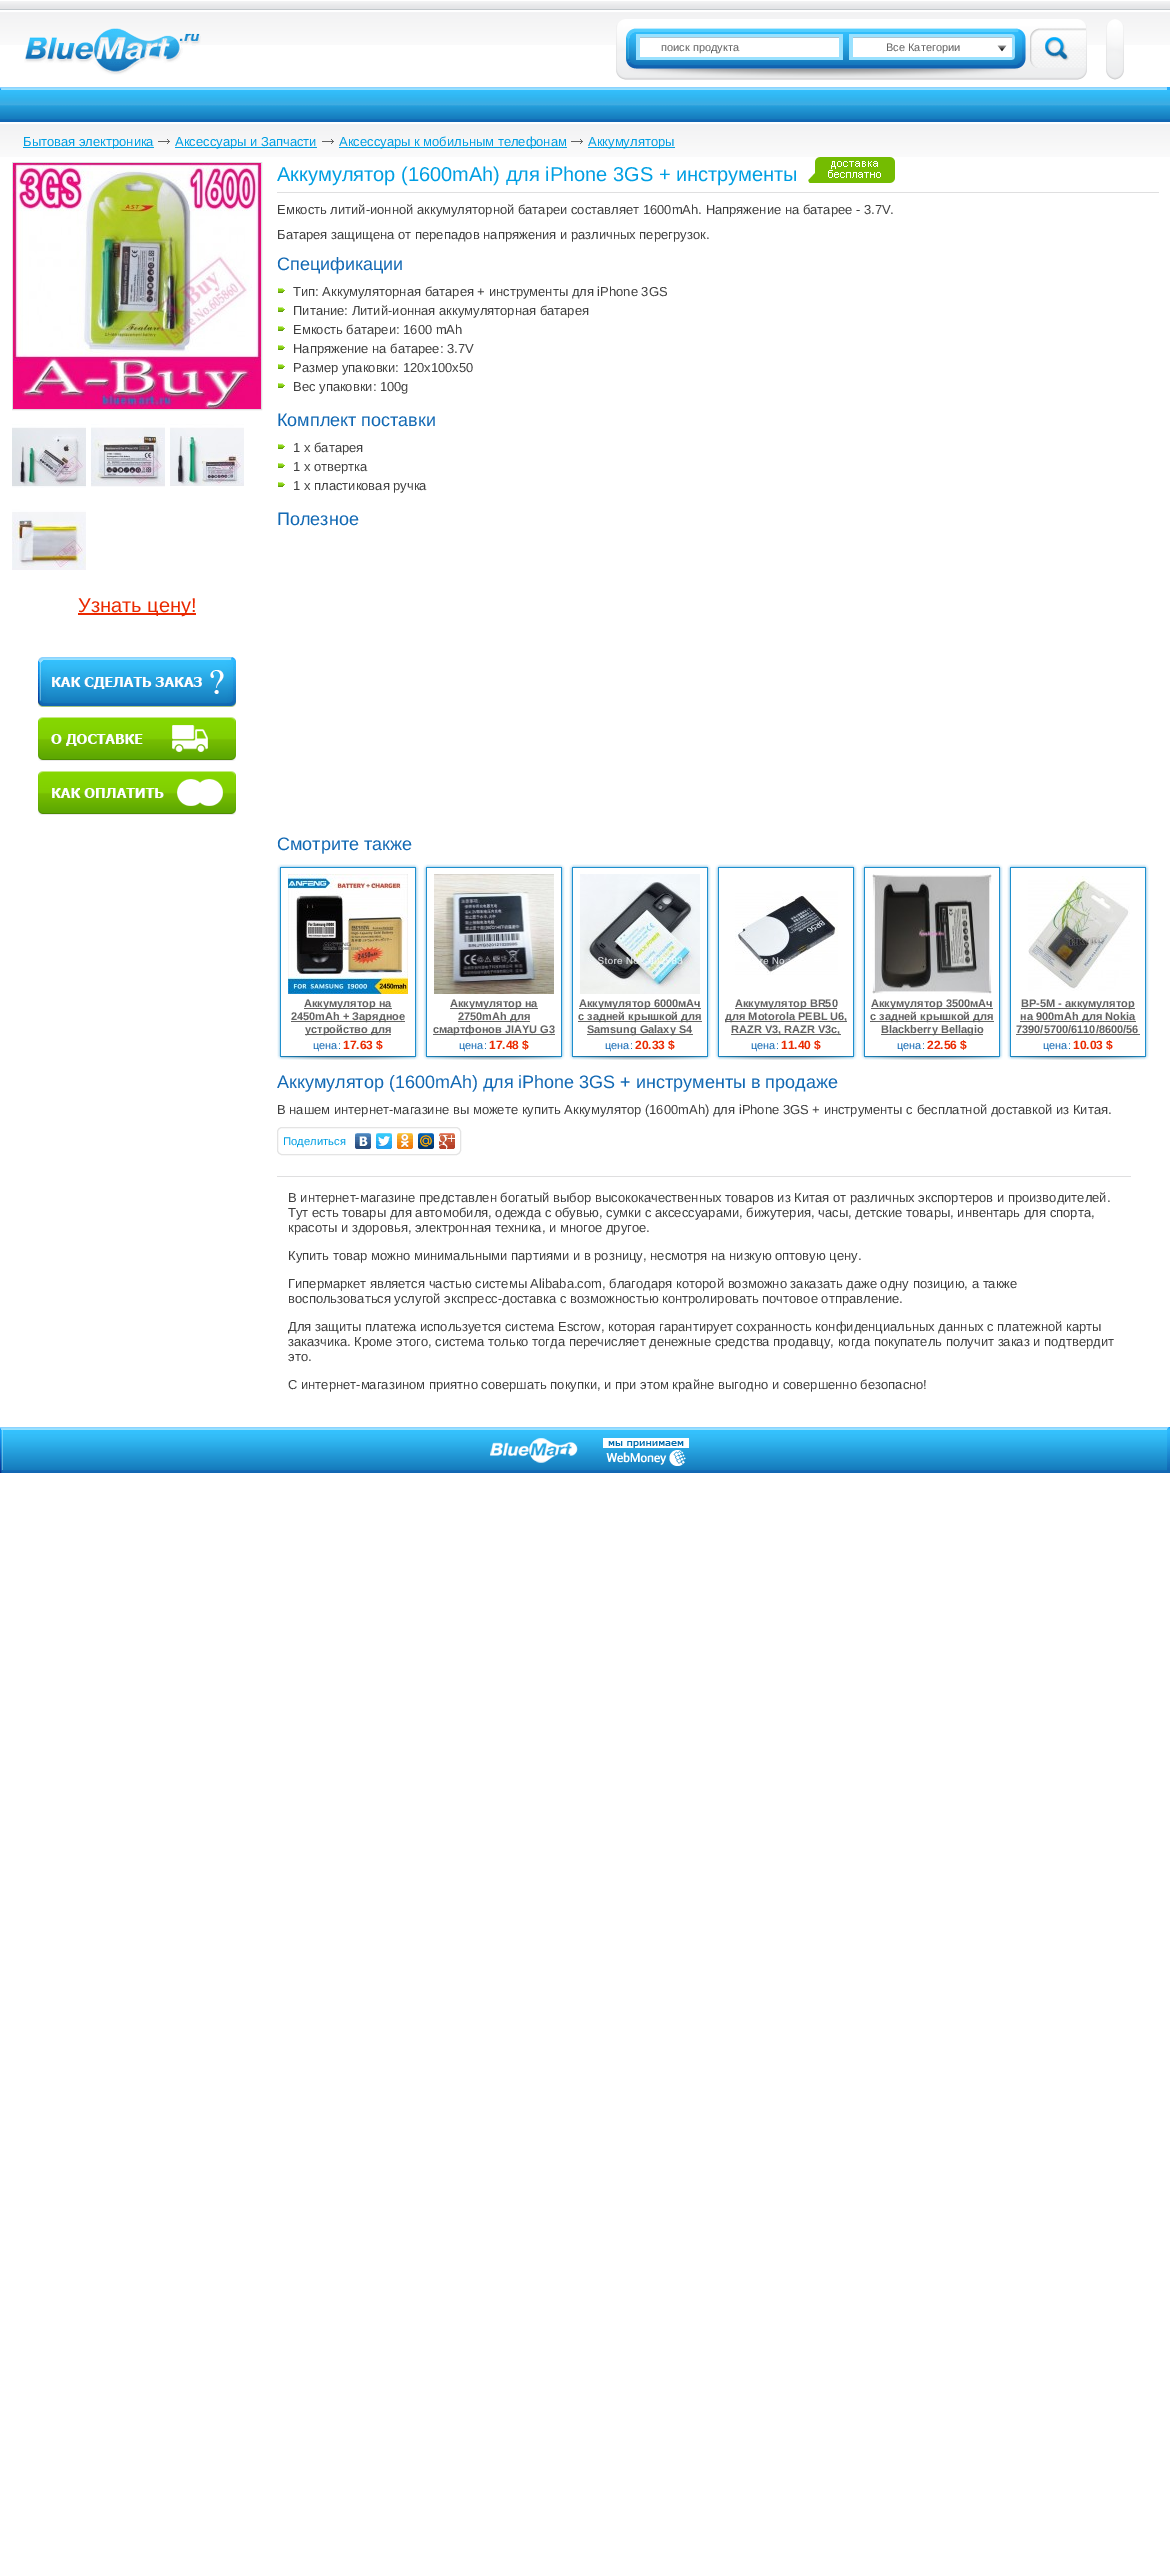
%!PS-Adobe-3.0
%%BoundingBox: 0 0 1170 2566
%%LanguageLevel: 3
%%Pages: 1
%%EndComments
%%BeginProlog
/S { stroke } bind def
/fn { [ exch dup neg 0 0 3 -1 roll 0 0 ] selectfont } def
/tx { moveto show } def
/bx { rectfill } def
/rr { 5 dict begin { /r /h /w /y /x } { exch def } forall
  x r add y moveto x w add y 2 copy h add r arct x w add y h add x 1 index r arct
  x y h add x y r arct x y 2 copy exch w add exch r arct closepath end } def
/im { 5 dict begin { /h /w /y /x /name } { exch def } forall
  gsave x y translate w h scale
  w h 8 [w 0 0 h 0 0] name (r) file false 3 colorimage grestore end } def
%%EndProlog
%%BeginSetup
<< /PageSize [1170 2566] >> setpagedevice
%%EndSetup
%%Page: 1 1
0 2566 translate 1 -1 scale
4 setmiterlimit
1 setgray
0 0 1170 2566 bx
(image0.raw) 0 1 1170 44 im
(image1.raw) 24 28 177 47 im
(image2.raw) 616 19 9 61 im
(image3.raw) 625 19 453 61 im
(image4.raw) 626 28 400 49 im
0.604 0.882 0.996 setrgbcolor
636 34 4 26 bx
(image5.raw) 640 34 199 26 im
/LiberationSans-Regular 11 fn
0.384 setgray
(поиск продукта) 661 51 tx
0.604 0.882 0.996 setrgbcolor
839 34 4 26 bx
849 34 4 26 bx
(image6.raw) 853 34 141 26 im
0.384 setgray
(Все Категории) 886 51 tx
(image7.raw) 994 34 21 26 im
(image9.raw) 1078 19 9 61 im
(image8.raw) 1030 28 56 40 im
(image2.raw) 1106 19 9 61 im
(image9.raw) 1115 19 9 61 im
(image10.raw) 0 87 1170 35 im
(image11.raw) 0 87 2 3 im
0.145 0.678 0.996 setrgbcolor
1167 87 3 3 bx
(image12.raw) 0 124 1170 33 im
0 0.624 0.89 setrgbcolor
23 147 131 1 bx
/LiberationSans-Regular 13 fn
(Бытовая электроника) 23 146 tx
(image13.raw) 158 139 12 5 im
175 147 142 1 bx
(Аксессуары и Запчасти) 175 146 tx
(image13.raw) 322 139 12 5 im
339 147 228 1 bx
(Аксессуары к мобильным телефонам) 339 146 tx
(image13.raw) 571 139 12 5 im
588 147 87 1 bx
(Аккумуляторы) 588 146 tx
0.875 0.875 0.878 setrgbcolor
12.5 162.5 249 247 rectstroke
(image14.raw) 13 163 248 246 im
(image15.raw) 12 424 74 64 im
(image16.raw) 91 424 74 63 im
(image17.raw) 170 424 74 62 im
(image18.raw) 12 508 74 62 im
0.918 0.161 0 setrgbcolor
78 613 118 2 bx
/LiberationSans-Regular 20 fn
(Узнать цену!) 78 612 tx
(image19.raw) 38 657 198 50 im
(image20.raw) 38 717 198 44 im
(image21.raw) 38 771 198 44 im
0.875 0.875 0.878 setrgbcolor
277 192 882 1 bx
0 0.624 0.89 setrgbcolor
(Аккумулятор \(1600mAh\) для iPhone 3GS + инструменты) 277 181 tx
(image22.raw) 808 157 87 26 im
/LiberationSans-Regular 13 fn
0.251 setgray
(Емкость литий-ионной аккумуляторной батареи составляет 1600mAh. Напряжение на батарее - 3.7V.) 277 214 tx
(Батарея защищена от перепадов напряжения и различных перегрузок.) 277 239 tx
/LiberationSans-Regular 18 fn
0.071 0.412 0.706 setrgbcolor
(Спецификации) 277 270 tx
(image23.raw) 278 288 7 5 im
/LiberationSans-Regular 13 fn
0.251 setgray
(Тип: Аккумуляторная батарея + инструменты для iPhone 3GS) 293 296 tx
(image23.raw) 278 307 7 5 im
(Питание: Литий-ионная аккумуляторная батарея) 293 315 tx
(image23.raw) 278 326 7 5 im
(Емкость батареи: 1600 mAh) 293 334 tx
(image23.raw) 278 345 7 5 im
(Напряжение на батарее: 3.7V) 293 353 tx
(image23.raw) 278 364 7 5 im
(Размер упаковки: 120x100x50) 293 372 tx
(image23.raw) 278 383 7 5 im
(Вес упаковки: 100g) 293 391 tx
/LiberationSans-Regular 18 fn
0.071 0.412 0.706 setrgbcolor
(Комплект поставки) 277 426 tx
(image23.raw) 278 444 7 5 im
/LiberationSans-Regular 13 fn
0.251 setgray
(1 x батарея) 293 452 tx
(image23.raw) 278 463 7 5 im
(1 x отвертка) 293 471 tx
(image23.raw) 278 482 7 5 im
(1 x пластиковая ручка) 293 490 tx
/LiberationSans-Regular 18 fn
0.071 0.412 0.706 setrgbcolor
(Полезное) 277 525 tx
(Смотрите также) 277 850 tx
(image24.raw) 277 864 4 4 im
(image25.raw) 281 864 134 4 im
(image26.raw) 415 864 4 4 im
(image27.raw) 277 868 4 188 im
(image28.raw) 288 874 120 120 im
0.384 setgray
304 1008 88 1 bx
/LiberationSans-Bold 11 fn
(Аккумулятор на) 304 1007 tx
291 1021 114 1 bx
(2450mAh + Зарядное) 291 1020 tx
305 1034 86 1 bx
(устройство для) 305 1033 tx
/LiberationSans-Regular 11 fn
0.071 0.412 0.706 setrgbcolor
(цена:) 313 1049 tx
/LiberationSans-Bold 12 fn
0.918 0.161 0 setrgbcolor
(17.63 $) 343 1049 tx
(image32.raw) 281 1056 134 4 im
(image29.raw) 281 1056 134 4 im
(image30.raw) 415 868 4 188 im
(image31.raw) 277 1056 4 4 im
(image33.raw) 415 1056 4 4 im
(image24.raw) 423 864 4 4 im
(image25.raw) 427 864 134 4 im
(image26.raw) 561 864 4 4 im
(image27.raw) 423 868 4 188 im
(image34.raw) 434 874 120 120 im
0.384 setgray
450 1008 88 1 bx
/LiberationSans-Bold 11 fn
(Аккумулятор на) 450 1007 tx
458 1021 72 1 bx
(2750mAh для) 458 1020 tx
433 1034 122 1 bx
(смартфонов JIAYU G3) 433 1033 tx
/LiberationSans-Regular 11 fn
0.071 0.412 0.706 setrgbcolor
(цена:) 459 1049 tx
/LiberationSans-Bold 12 fn
0.918 0.161 0 setrgbcolor
(17.48 $) 489 1049 tx
(image32.raw) 427 1056 134 4 im
(image29.raw) 427 1056 134 4 im
(image30.raw) 561 868 4 188 im
(image31.raw) 423 1056 4 4 im
(image33.raw) 561 1056 4 4 im
(image24.raw) 569 864 4 4 im
(image25.raw) 573 864 134 4 im
(image26.raw) 707 864 4 4 im
(image27.raw) 569 868 4 188 im
(image35.raw) 580 874 120 120 im
0.384 setgray
579 1008 122 1 bx
/LiberationSans-Bold 11 fn
(Аккумулятор 6000мАч) 579 1007 tx
578 1021 124 1 bx
(с задней крышкой для) 578 1020 tx
587 1034 106 1 bx
(Samsung Galaxy S4) 587 1033 tx
/LiberationSans-Regular 11 fn
0.071 0.412 0.706 setrgbcolor
(цена:) 605 1049 tx
/LiberationSans-Bold 12 fn
0.918 0.161 0 setrgbcolor
(20.33 $) 635 1049 tx
(image32.raw) 573 1056 134 4 im
(image29.raw) 573 1056 134 4 im
(image30.raw) 707 868 4 188 im
(image31.raw) 569 1056 4 4 im
(image33.raw) 707 1056 4 4 im
(image24.raw) 715 864 4 4 im
(image25.raw) 719 864 134 4 im
(image26.raw) 853 864 4 4 im
(image27.raw) 715 868 4 188 im
(image36.raw) 735 891 103 84 im
0.384 setgray
735 1008 102 1 bx
/LiberationSans-Bold 11 fn
(Аккумулятор BR50) 735 1007 tx
725 1021 122 1 bx
(для Motorola PEBL U6,) 725 1020 tx
731 1034 110 1 bx
(RAZR V3, RAZR V3c,) 731 1033 tx
/LiberationSans-Regular 11 fn
0.071 0.412 0.706 setrgbcolor
(цена:) 751 1049 tx
/LiberationSans-Bold 12 fn
0.918 0.161 0 setrgbcolor
(11.40 $) 781 1049 tx
(image32.raw) 719 1056 134 4 im
(image29.raw) 719 1056 134 4 im
(image30.raw) 853 868 4 188 im
(image31.raw) 715 1056 4 4 im
(image33.raw) 853 1056 4 4 im
(image24.raw) 861 864 4 4 im
(image25.raw) 865 864 134 4 im
(image26.raw) 999 864 4 4 im
(image27.raw) 861 868 4 188 im
(image37.raw) 872 874 120 120 im
0.384 setgray
871 1008 122 1 bx
/LiberationSans-Bold 11 fn
(Аккумулятор 3500мАч) 871 1007 tx
870 1021 124 1 bx
(с задней крышкой для) 870 1020 tx
881 1034 102 1 bx
(Blackberry Bellagio) 881 1033 tx
/LiberationSans-Regular 11 fn
0.071 0.412 0.706 setrgbcolor
(цена:) 897 1049 tx
/LiberationSans-Bold 12 fn
0.918 0.161 0 setrgbcolor
(22.56 $) 927 1049 tx
(image32.raw) 865 1056 134 4 im
(image29.raw) 865 1056 134 4 im
(image30.raw) 999 868 4 188 im
(image31.raw) 861 1056 4 4 im
(image33.raw) 999 1056 4 4 im
(image24.raw) 1007 864 4 4 im
(image25.raw) 1011 864 134 4 im
(image26.raw) 1145 864 4 4 im
(image27.raw) 1007 868 4 188 im
(image38.raw) 1028 876 102 115 im
0.384 setgray
1021 1008 114 1 bx
/LiberationSans-Bold 11 fn
(BP-5M - аккумулятор) 1021 1007 tx
1020 1021 116 1 bx
(на 900mAh для Nokia) 1020 1020 tx
(7390/5700/6110/8600/56) 1016 1033 tx
1016 1034 124 1 bx
/LiberationSans-Regular 11 fn
0.071 0.412 0.706 setrgbcolor
(цена:) 1043 1049 tx
/LiberationSans-Bold 12 fn
0.918 0.161 0 setrgbcolor
(10.03 $) 1073 1049 tx
(image32.raw) 1011 1056 134 4 im
(image29.raw) 1011 1056 134 4 im
(image30.raw) 1145 868 4 188 im
(image31.raw) 1007 1056 4 4 im
(image33.raw) 1145 1056 4 4 im
/LiberationSans-Regular 18 fn
0.071 0.412 0.706 setrgbcolor
(Аккумулятор \(1600mAh\) для iPhone 3GS + инструменты в продаже) 277 1088 tx
/LiberationSans-Regular 13 fn
0.251 setgray
(В нашем интернет-магазине вы можете купить Аккумулятор \(1600mAh\) для iPhone 3GS + инструменты с бесплатной доставкой из Китая.) 277 1114 tx
0.894 setgray
277.5 1127.5 183 27 4.5 rr S
/LiberationSans-Regular 11.25 fn
0 0.624 0.89 setrgbcolor
(Поделиться) 283 1145 tx
(image39.raw) 355 1133 16 16 im
(image40.raw) 376 1133 16 16 im
(image41.raw) 397 1133 16 16 im
(image42.raw) 418 1133 16 16 im
(image43.raw) 439 1133 16 16 im
0.875 0.875 0.878 setrgbcolor
277 1176 854 1 bx
/LiberationSans-Regular 13 fn
0.251 setgray
(В интернет-магазине представлен богатый выбор высококачественных товаров из Китая от различных экспортеров и производителей.) 288 1202 tx
(Тут есть товары для автомобиля, одежда с обувью, сумки с аксессуарами, бижутерия, часы, детские товары, инвентарь для спорта,) 288 1217 tx
(красоты и здоровья, электронная техника, и многое другое.) 288 1232 tx
(Купить товар можно минимальными партиями и в розницу, несмотря на низкую оптовую цену.) 288 1260 tx
(Гипермаркет является частью системы Alibaba.com, благодаря которой возможно заказать даже одну позицию, а также) 288 1288 tx
(воспользоваться услугой экспресс-доставка с возможностью контролировать почтовое отправление.) 288 1303 tx
(Для защиты платежа используется система Escrow, которая гарантирует сохранность конфиденциальных данных с платежной карты) 288 1331 tx
(заказчика. Кроме этого, система только тогда перечисляет денежные средства продавцу, когда покупатель получит заказ и подтвердит) 288 1346 tx
(это.) 288 1361 tx
(С интернет-магазином приятно совершать покупки, и при этом крайне выгодно и совершенно безопасно!) 288 1389 tx
(image44.raw) 3 1427 1167 46 im
(image45.raw) 0 1427 3 46 im
(image46.raw) 1167 1427 3 44 im
(image47.raw) 490 1438 88 25 im
(image48.raw) 603 1438 86 28 im
showpage
%%EOF
